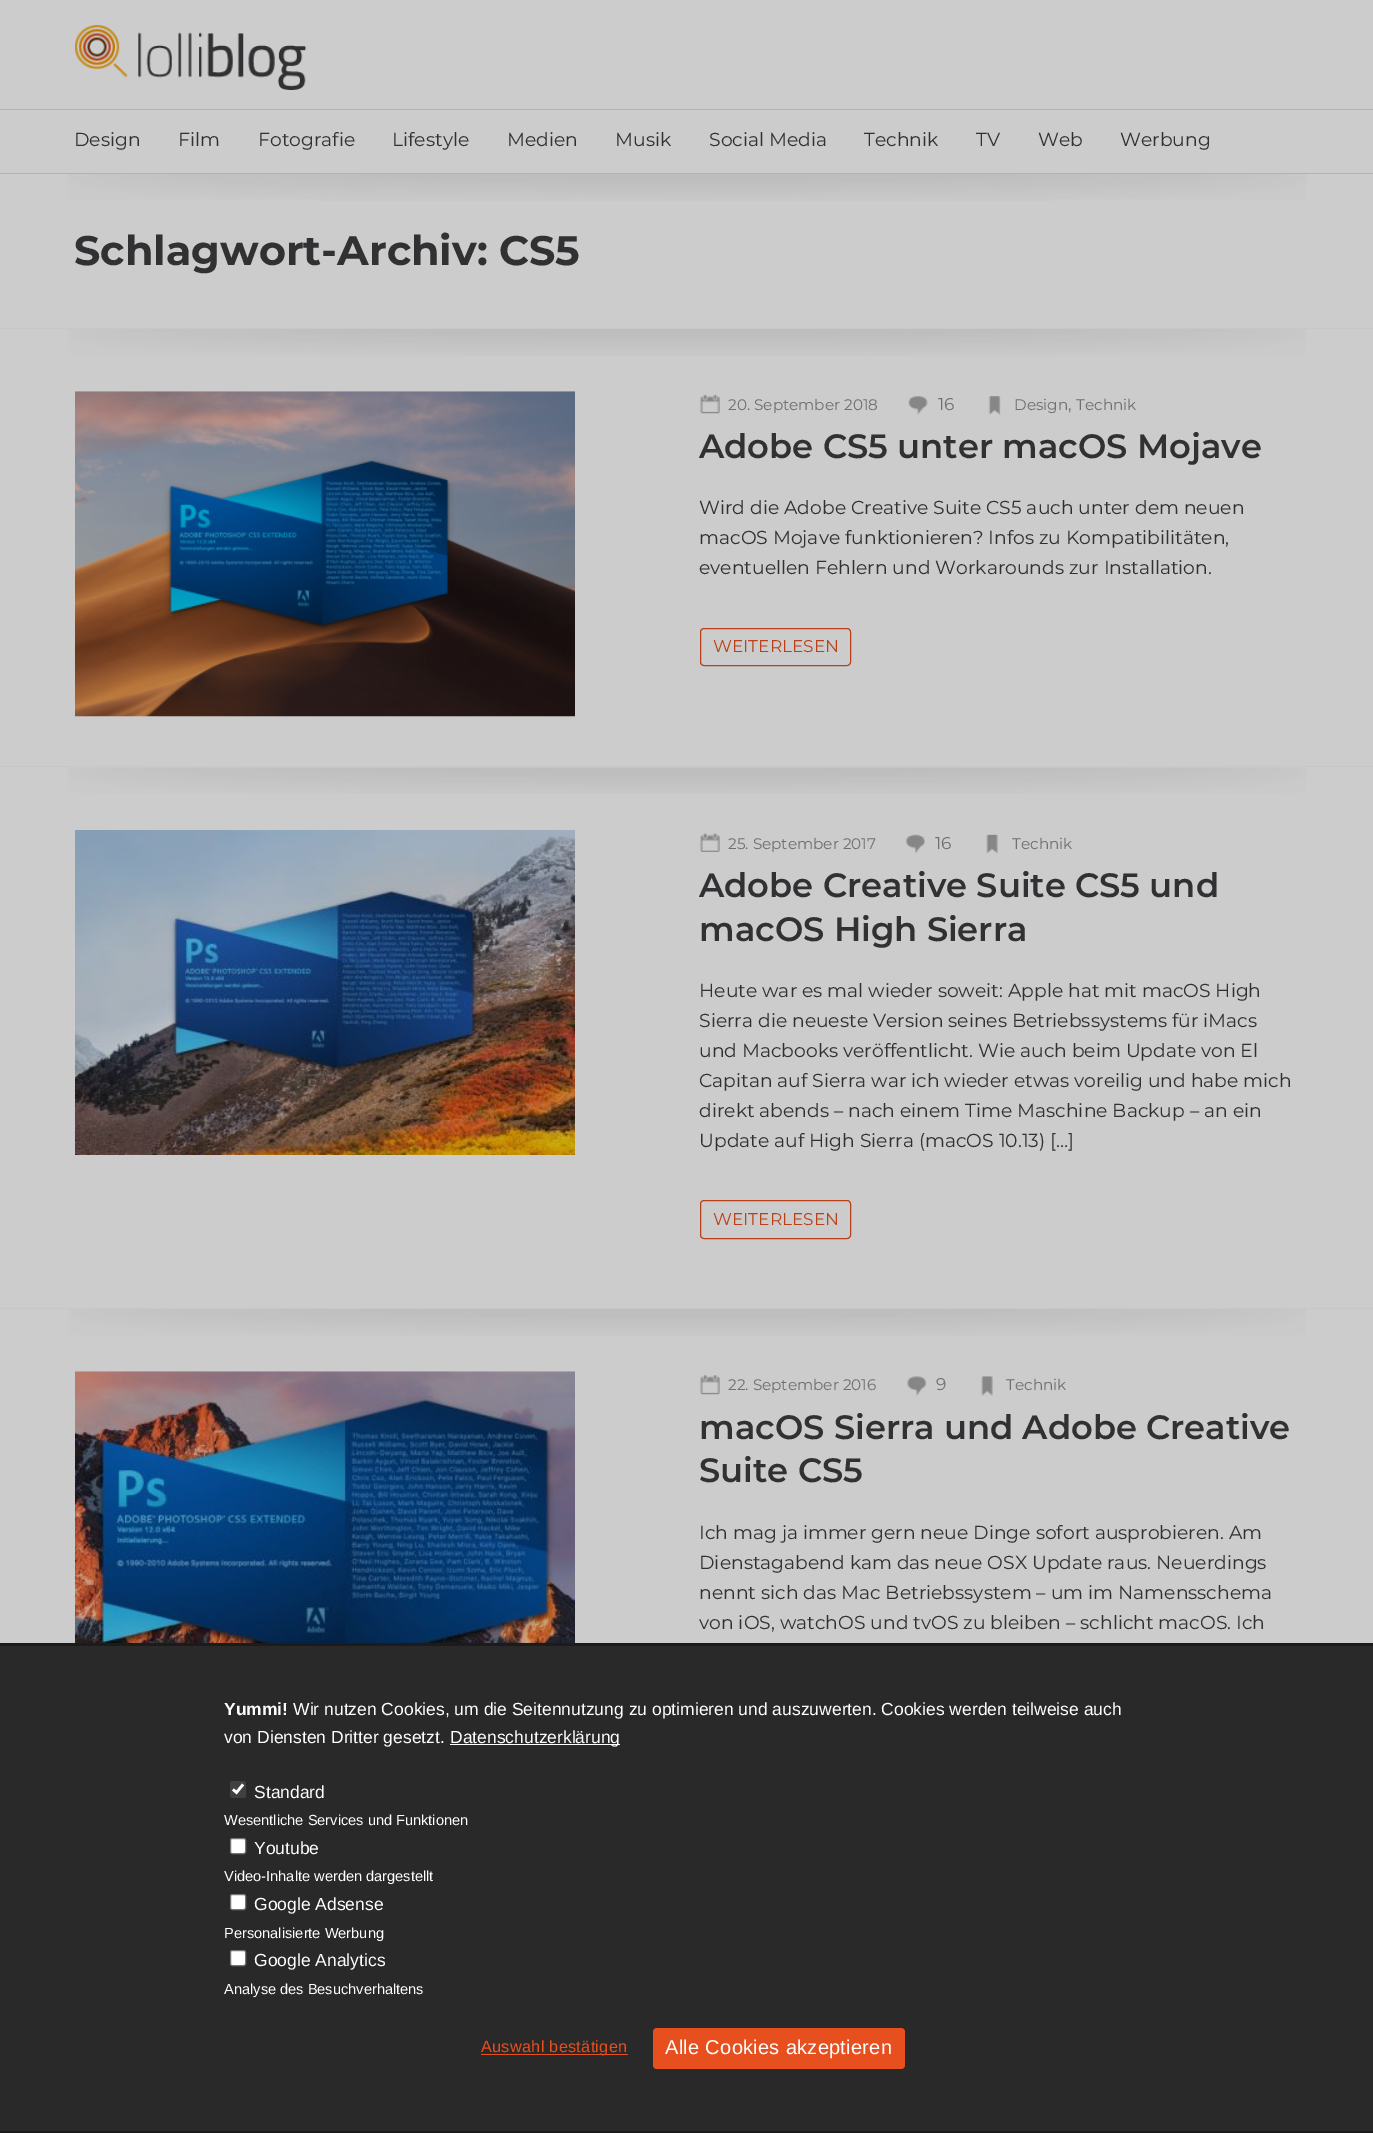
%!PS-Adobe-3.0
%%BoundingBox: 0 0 1373 2133
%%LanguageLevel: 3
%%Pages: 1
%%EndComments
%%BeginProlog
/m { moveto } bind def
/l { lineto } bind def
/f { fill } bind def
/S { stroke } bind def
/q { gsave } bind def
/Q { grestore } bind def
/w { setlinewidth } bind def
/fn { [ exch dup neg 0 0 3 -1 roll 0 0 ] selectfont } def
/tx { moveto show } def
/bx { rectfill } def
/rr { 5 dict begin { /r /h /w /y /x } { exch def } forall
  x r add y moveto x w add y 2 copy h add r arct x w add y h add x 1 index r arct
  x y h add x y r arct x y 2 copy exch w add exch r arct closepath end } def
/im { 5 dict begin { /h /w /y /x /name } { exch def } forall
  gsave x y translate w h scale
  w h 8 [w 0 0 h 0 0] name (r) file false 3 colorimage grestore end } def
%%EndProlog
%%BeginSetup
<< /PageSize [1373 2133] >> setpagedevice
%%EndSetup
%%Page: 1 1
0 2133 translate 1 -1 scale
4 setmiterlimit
0.8 setgray
0 0 1373 2133 bx
(image0.raw) 68 174 1238 27 im
(image1.raw) 75 25 232 65 im
0.698 setgray
0 109 1373 1 bx
0 173 1373 1 bx
/Montserrat-Regular 18.75 fn
0.192 0.188 0.196 setrgbcolor
(Design) 74 146 tx
(Film) 178 146 tx
(Fotografie) 258 146 tx
(Lifestyle) 392 146 tx
(Medien) 507 146 tx
(Musik) 615 146 tx
(Social Media) 709 146 tx
(Technik) 864 146 tx
(TV) 976 146 tx
(Web) 1038 146 tx
(Werbung) 1120 146 tx
/Montserrat-Bold 41.25 fn
(Schlagwort-Archiv: CS5) 74 265 tx
(image0.raw) 68 329 1238 27 im
0.78 setgray
0 328 1373 1 bx
(image2.raw) 75 391 500 326 im
(image3.raw) 700 394 20 20 im
/Montserrat-Regular 15.25 fn
0.435 0.431 0.439 setrgbcolor
(20. September 2018) 728 410 tx
(image4.raw) 908 396 20 19 im
/Montserrat-Regular 17 fn
(16) 938 410 tx
(image5.raw) 988 396 13 19 im
/Montserrat-Regular 15.25 fn
(Design) 1014 410 tx
/Montserrat-Regular 17 fn
(,) 1068 410 tx
/Montserrat-Regular 15.25 fn
(Technik) 1076 410 tx
/Montserrat-SemiBold 33.75 fn
0.192 0.188 0.196 setrgbcolor
(Adobe CS5 unter macOS Mojave) 699 458 tx
/Montserrat-Regular 18.75 fn
(Wird die Adobe Creative Suite CS5 auch unter dem neuen) 699 514 tx
(macOS Mojave funktionieren? Infos zu Kompatibilitäten,) 699 544 tx
(eventuellen Fehlern und Workarounds zur Installation.) 699 574 tx
0.725 0.251 0.094 setrgbcolor
700.5 628.5 150 37 3.5 rr S
/Montserrat-Regular 17 fn
(WEITERLESEN) 713 652 tx
(image6.raw) 68 767 1238 27 im
0.78 setgray
0 766 1373 1 bx
(image7.raw) 75 830 500 325 im
(image8.raw) 700 833 20 19 im
/Montserrat-Regular 15.25 fn
0.435 0.431 0.439 setrgbcolor
(25. September 2017) 728 849 tx
(image9.raw) 906 834 19 20 im
/Montserrat-Regular 17 fn
(16) 935 849 tx
(image10.raw) 986 834 12 20 im
/Montserrat-Regular 15.25 fn
(Technik) 1012 849 tx
/Montserrat-SemiBold 33.75 fn
0.192 0.188 0.196 setrgbcolor
(Adobe Creative Suite CS5 und) 699 897 tx
(macOS High Sierra) 699 941 tx
/Montserrat-Regular 18.75 fn
(Heute war es mal wieder soweit: Apple hat mit macOS High) 699 997 tx
(Sierra die neueste Version seines Betriebssystems für iMacs) 699 1027 tx
(und Macbooks veröffentlicht. Wie auch beim Update von El) 699 1057 tx
(Capitan auf Sierra war ich wieder etwas voreilig und habe mich) 699 1087 tx
(direkt abends – nach einem Time Maschine Backup – an ein) 699 1117 tx
(Update auf High Sierra \(macOS 10.13\) […]) 699 1147 tx
0.725 0.251 0.094 setrgbcolor
700.5 1200.5 150 38 3.5 rr S
/Montserrat-Regular 17 fn
(WEITERLESEN) 713 1225 tx
(image0.raw) 68 1309 1238 27 im
0.78 setgray
0 1308 1373 1 bx
(image11.raw) 75 1371 500 272 im
(image12.raw) 700 1375 20 20 im
/Montserrat-Regular 15.25 fn
0.435 0.431 0.439 setrgbcolor
(22. September 2016) 728 1390 tx
(image13.raw) 907 1376 20 20 im
/Montserrat-Regular 17 fn
(9) 936 1390 tx
(image14.raw) 981 1376 12 20 im
/Montserrat-Regular 15.25 fn
(Technik) 1006 1390 tx
/Montserrat-SemiBold 33.75 fn
0.192 0.188 0.196 setrgbcolor
(macOS Sierra und Adobe Creative) 699 1439 tx
(Suite CS5) 699 1482 tx
/Montserrat-Regular 18.75 fn
(Ich mag ja immer gern neue Dinge sofort ausprobieren. Am) 699 1539 tx
(Dienstagabend kam das neue OSX Update raus. Neuerdings) 699 1569 tx
(nennt sich das Mac Betriebssystem – um im Namensschema) 699 1599 tx
(von iOS, watchOS und tvOS zu bleiben – schlicht macOS. Ich) 699 1629 tx
0.161 setgray
0 1646 1373 485 bx
0.106 setgray
0 1643 1373 3 bx
0 2131 1373 2 bx
/LiberationSans-Bold 17.5 fn
1 setgray
(Yummi!) 224 1715 tx
/LiberationSans-Regular 17.5 fn
(Wir nutzen Cookies, um die Seitennutzung zu optimieren und auszuwerten. Cookies werden teilweise auch) 293 1715 tx
(von Diensten Dritter gesetzt.) 224 1743 tx
450 1744 170 1 bx
(Datenschutzerklärung) 450 1743 tx
0.251 setgray
230 1781 16 17 2.5 rr f
1 setgray
2.6 w
233 1789.5 m 236.5 1792.5 l 243 1784.5 l S
(Standard) 254 1798 tx
/LiberationSans-Regular 14.6 fn
(Wesentliche Services und Funktionen) 224 1825 tx
230.5 1838.5 15 15 2 rr q f Q
0.463 setgray
1 w
S
/LiberationSans-Regular 17.5 fn
1 setgray
(Youtube) 254 1854 tx
/LiberationSans-Regular 14.6 fn
(Video-Inhalte werden dargestellt) 224 1881 tx
230.5 1894.5 15 15 2 rr q f Q
0.463 setgray
S
/LiberationSans-Regular 17.5 fn
1 setgray
(Google Adsense) 254 1910 tx
/LiberationSans-Regular 14.6 fn
(Personalisierte Werbung) 224 1938 tx
230.5 1950.5 15 15 2 rr q f Q
0.463 setgray
S
/LiberationSans-Regular 17.5 fn
1 setgray
(Google Analytics) 254 1966 tx
/LiberationSans-Regular 14.6 fn
(Analyse des Besuchverhaltens) 224 1994 tx
0.906 0.314 0.118 setrgbcolor
481 2054 147 1 bx
/LiberationSans-Regular 16.25 fn
481 2052 m 0.3 0 (Auswahl bestätigen) ashow
653 2028 252 41 4 rr f
/LiberationSans-Regular 20 fn
1 setgray
665 2054 m 0.3 0 (Alle Cookies akzeptieren) ashow
showpage
%%EOF
